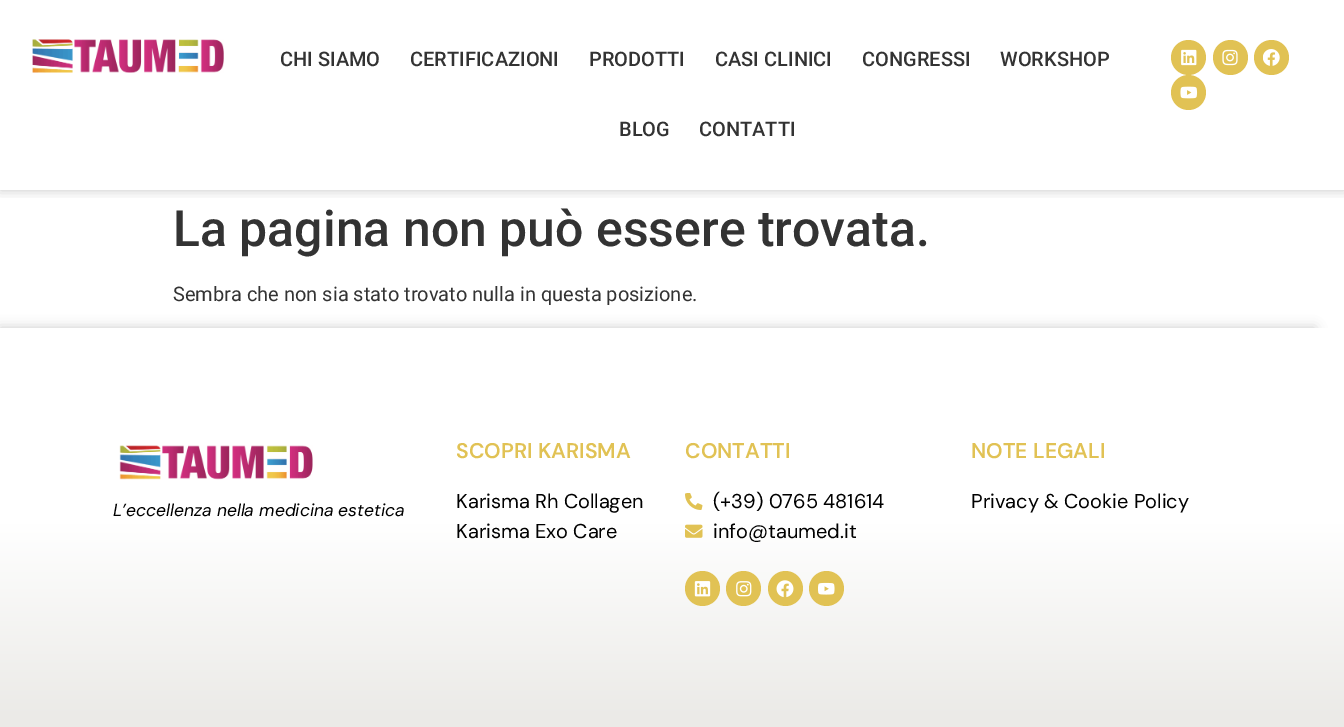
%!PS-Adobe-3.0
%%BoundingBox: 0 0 1344 727
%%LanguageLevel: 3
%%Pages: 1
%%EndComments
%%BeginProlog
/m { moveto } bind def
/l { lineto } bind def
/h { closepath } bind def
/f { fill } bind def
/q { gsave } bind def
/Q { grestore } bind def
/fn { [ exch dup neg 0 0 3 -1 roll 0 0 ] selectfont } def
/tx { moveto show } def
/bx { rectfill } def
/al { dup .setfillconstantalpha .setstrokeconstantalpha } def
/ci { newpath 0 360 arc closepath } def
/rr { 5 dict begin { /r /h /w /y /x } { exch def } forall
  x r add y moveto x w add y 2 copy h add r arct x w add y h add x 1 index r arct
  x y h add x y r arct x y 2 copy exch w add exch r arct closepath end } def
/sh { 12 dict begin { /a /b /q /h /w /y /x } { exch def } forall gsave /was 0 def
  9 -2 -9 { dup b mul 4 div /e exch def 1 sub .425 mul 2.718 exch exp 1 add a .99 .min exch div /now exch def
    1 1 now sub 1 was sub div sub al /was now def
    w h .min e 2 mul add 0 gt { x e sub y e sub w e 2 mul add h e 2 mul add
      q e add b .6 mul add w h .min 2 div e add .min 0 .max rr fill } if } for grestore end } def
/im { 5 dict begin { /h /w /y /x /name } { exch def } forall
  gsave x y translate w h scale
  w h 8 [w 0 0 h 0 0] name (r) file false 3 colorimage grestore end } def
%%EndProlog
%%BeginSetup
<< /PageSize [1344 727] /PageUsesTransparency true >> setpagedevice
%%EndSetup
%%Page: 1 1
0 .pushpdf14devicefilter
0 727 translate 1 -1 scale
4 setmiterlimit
1 setgray
0 0 1344 727 bx
q
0 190 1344 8 rectclip
0 setgray
0 0 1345 190 0 6 0.22 sh
Q
(image0.raw) 32 39 192 34 im
/Roboto-Medium 20 fn
0.2 setgray
(CHI SIAMO) 280 66 tx
(CERTIFICAZIONI) 410 66 tx
(PRODOTTI) 589 66 tx
(CASI CLINICI) 715 66 tx
(CONGRESSI) 862 66 tx
(WORKSHOP) 1000 66 tx
(BLOG) 619 136 tx
(CONTATTI) 699 136 tx
0.882 0.761 0.329 setrgbcolor
1188.5 57.5 17.5 ci f
(image1.raw) 1181 49 16 17 im
1230.5 57.5 17.5 ci f
(image2.raw) 1222 49 16 17 im
1271.5 57.5 17.5 ci f
(image3.raw) 1263 49 17 17 im
1188.5 92.5 17.5 ci f
(image4.raw) 1180 86 18 13 im
/Roboto-Medium 50 fn
0.2 setgray
(La pagina non può essere trovata.) 173 246 tx
/Roboto-Regular 20 fn
(Sembra che non sia stato trovato nulla in questa posizione.) 173 301 tx
0 setgray
0 328 1315 361 0 6 0.2 sh
q 0 328 m 1344 328 l 1344 719 l 0 719 l h clip newpath
<< /ShadingType 2 /ColorSpace /DeviceRGB /Coords [673 719 673 328] /Extend [true true] /Function << /FunctionType 3 /Domain [0 1] /Functions [<< /FunctionType 2 /Domain [0 1] /C0 [0.922 0.918 0.906] /C1 [1 1 1] /N 1 >> << /FunctionType 2 /Domain [0 1] /C0 [1 1 1] /C1 [1 1 1] /N 1 >>] /Bounds [0.51] /Encode [0 1 0 1] >> >> shfill Q
(image5.raw) 119 445 194 35 im
/DMSans-Italic 17.5 fn
(L’eccellenza nella medicina estetica) 113 516 tx
/DMSans-SemiBold 21.25 fn
0.882 0.761 0.329 setrgbcolor
(SCOPRI KARISMA) 456 458 tx
/DMSans-Regular 20 fn
0 setgray
(Karisma Rh Collagen) 456 508 tx
(Karisma Exo Care) 456 538 tx
/DMSans-SemiBold 21.25 fn
0.882 0.761 0.329 setrgbcolor
(CONTATTI) 685 458 tx
(image6.raw) 685 493 18 17 im
/DMSans-Regular 20 fn
0 setgray
(\(+39\) 0765 481614) 713 508 tx
(image7.raw) 685 524 18 14 im
(info@taumed.it) 713 538 tx
0.882 0.761 0.329 setrgbcolor
702.5 588.5 17.5 ci f
(image8.raw) 694 581 17 16 im
743.5 588.5 17.5 ci f
(image9.raw) 736 581 16 16 im
785.5 588.5 17.5 ci f
(image10.raw) 776 580 18 18 im
826.5 588.5 17.5 ci f
(image11.raw) 818 582 17 13 im
/DMSans-SemiBold 21.25 fn
(NOTE LEGALI) 971 458 tx
/DMSans-Regular 20 fn
0 setgray
(Privacy & Cookie Policy) 971 508 tx
0.922 0.918 0.906 setrgbcolor
0 719 1344 8 bx
.poppdf14devicefilter showpage
%%EOF
